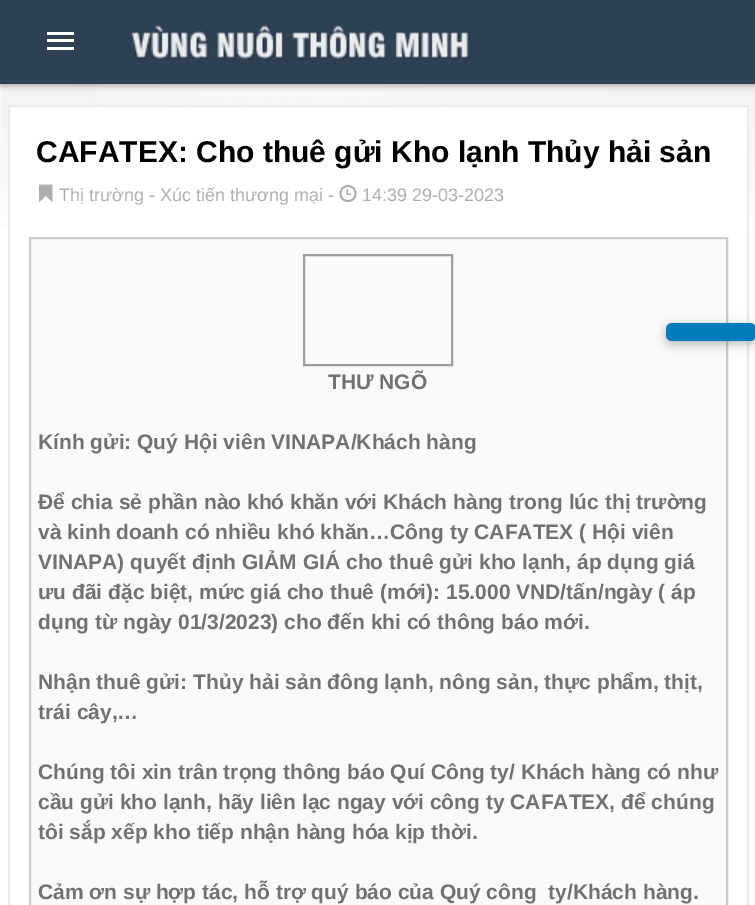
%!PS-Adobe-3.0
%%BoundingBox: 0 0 755 905
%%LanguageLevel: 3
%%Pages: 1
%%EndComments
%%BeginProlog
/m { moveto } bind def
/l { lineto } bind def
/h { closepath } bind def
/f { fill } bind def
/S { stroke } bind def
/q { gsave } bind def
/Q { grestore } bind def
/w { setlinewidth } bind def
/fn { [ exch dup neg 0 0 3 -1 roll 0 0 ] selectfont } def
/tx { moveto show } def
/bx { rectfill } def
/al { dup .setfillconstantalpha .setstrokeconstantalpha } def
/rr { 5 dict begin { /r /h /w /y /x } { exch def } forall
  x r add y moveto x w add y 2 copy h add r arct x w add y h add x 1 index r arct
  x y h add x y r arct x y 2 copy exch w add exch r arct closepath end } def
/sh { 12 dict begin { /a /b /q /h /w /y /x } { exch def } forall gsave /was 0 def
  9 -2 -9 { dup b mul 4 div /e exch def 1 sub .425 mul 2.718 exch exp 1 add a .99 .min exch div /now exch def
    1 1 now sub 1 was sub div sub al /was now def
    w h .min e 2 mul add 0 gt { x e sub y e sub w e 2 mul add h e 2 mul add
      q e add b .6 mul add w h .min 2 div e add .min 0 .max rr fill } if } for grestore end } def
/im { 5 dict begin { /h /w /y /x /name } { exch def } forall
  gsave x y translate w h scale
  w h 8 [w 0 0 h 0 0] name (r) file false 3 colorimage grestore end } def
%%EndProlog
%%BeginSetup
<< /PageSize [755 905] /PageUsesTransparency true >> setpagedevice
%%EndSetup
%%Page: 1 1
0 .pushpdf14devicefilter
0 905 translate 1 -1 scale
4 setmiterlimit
1 setgray
0 0 755 905 bx
(image0.raw) 0 84 755 21 im
(image1.raw) 0 105 755 123 im
0 setgray
0 2 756 84 0 3 0.3 sh
0.18 0.251 0.325 setrgbcolor
0 0 755 84 bx
1 setgray
47 32 27 3 bx
47 39 27 3 bx
47 47 27 3 bx
(image2.raw) 131 25 339 35 im
10 107 737 121 bx
0.925 setgray
2 w
9 106 739 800 rectstroke
/LiberationSans-Bold 30 fn
0 setgray
(CAFATEX: Cho thuê gửi Kho lạnh Thủy hải sản) 36 162 tx
(image3.raw) 39 184 14 19 im
/LiberationSans-Regular 18 fn
0.682 setgray
(Thị trường - Xúc tiến thương mại -) 59 201 tx
(image4.raw) 339 184 18 19 im
(14:39 29-03-2023) 362 201 tx
0.98 setgray
30 238 m 727 238 l 727 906 l 30 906 l h q f Q
0.8 setgray
S
0.62 setgray
304 255 148 110 rectstroke
/LiberationSans-Bold 21 fn
0.443 setgray
(THƯ NGÕ) 328 389 tx
(Kính gửi: Quý Hội viên VINAPA/Khách hàng) 38 449 tx
(Để chia sẻ phần nào khó khăn với Khách hàng trong lúc thị trường) 38 509 tx
(và kinh doanh có nhiều khó khăn…Công ty CAFATEX \( Hội viên) 38 539 tx
(VINAPA\) quyết định GIẢM GIÁ cho thuê gửi kho lạnh, áp dụng giá) 38 569 tx
(ưu đãi đặc biệt, mức giá cho thuê \(mới\): 15.000 VND/tấn/ngày \( áp) 38 599 tx
(dụng từ ngày 01/3/2023\) cho đến khi có thông báo mới.) 38 629 tx
(Nhận thuê gửi: Thủy hải sản đông lạnh, nông sản, thực phẩm, thịt,) 38 689 tx
(trái cây,…) 38 719 tx
(Chúng tôi xin trân trọng thông báo Quí Công ty/ Khách hàng có như) 38 779 tx
(cầu gửi kho lạnh, hãy liên lạc ngay với công ty CAFATEX, để chúng) 38 809 tx
(tôi sắp xếp kho tiếp nhận hàng hóa kịp thời.) 38 839 tx
(Cảm ơn sự hợp tác, hỗ trợ quý báo của Quý công  ty/Khách hàng.) 38 899 tx
0 setgray
666 326 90 18 6 7.5 0.12 sh
666 326 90 18 6 4 0.16 sh
0 0.486 0.741 setrgbcolor
666 323 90 18 6 rr f
.poppdf14devicefilter showpage
%%EOF
